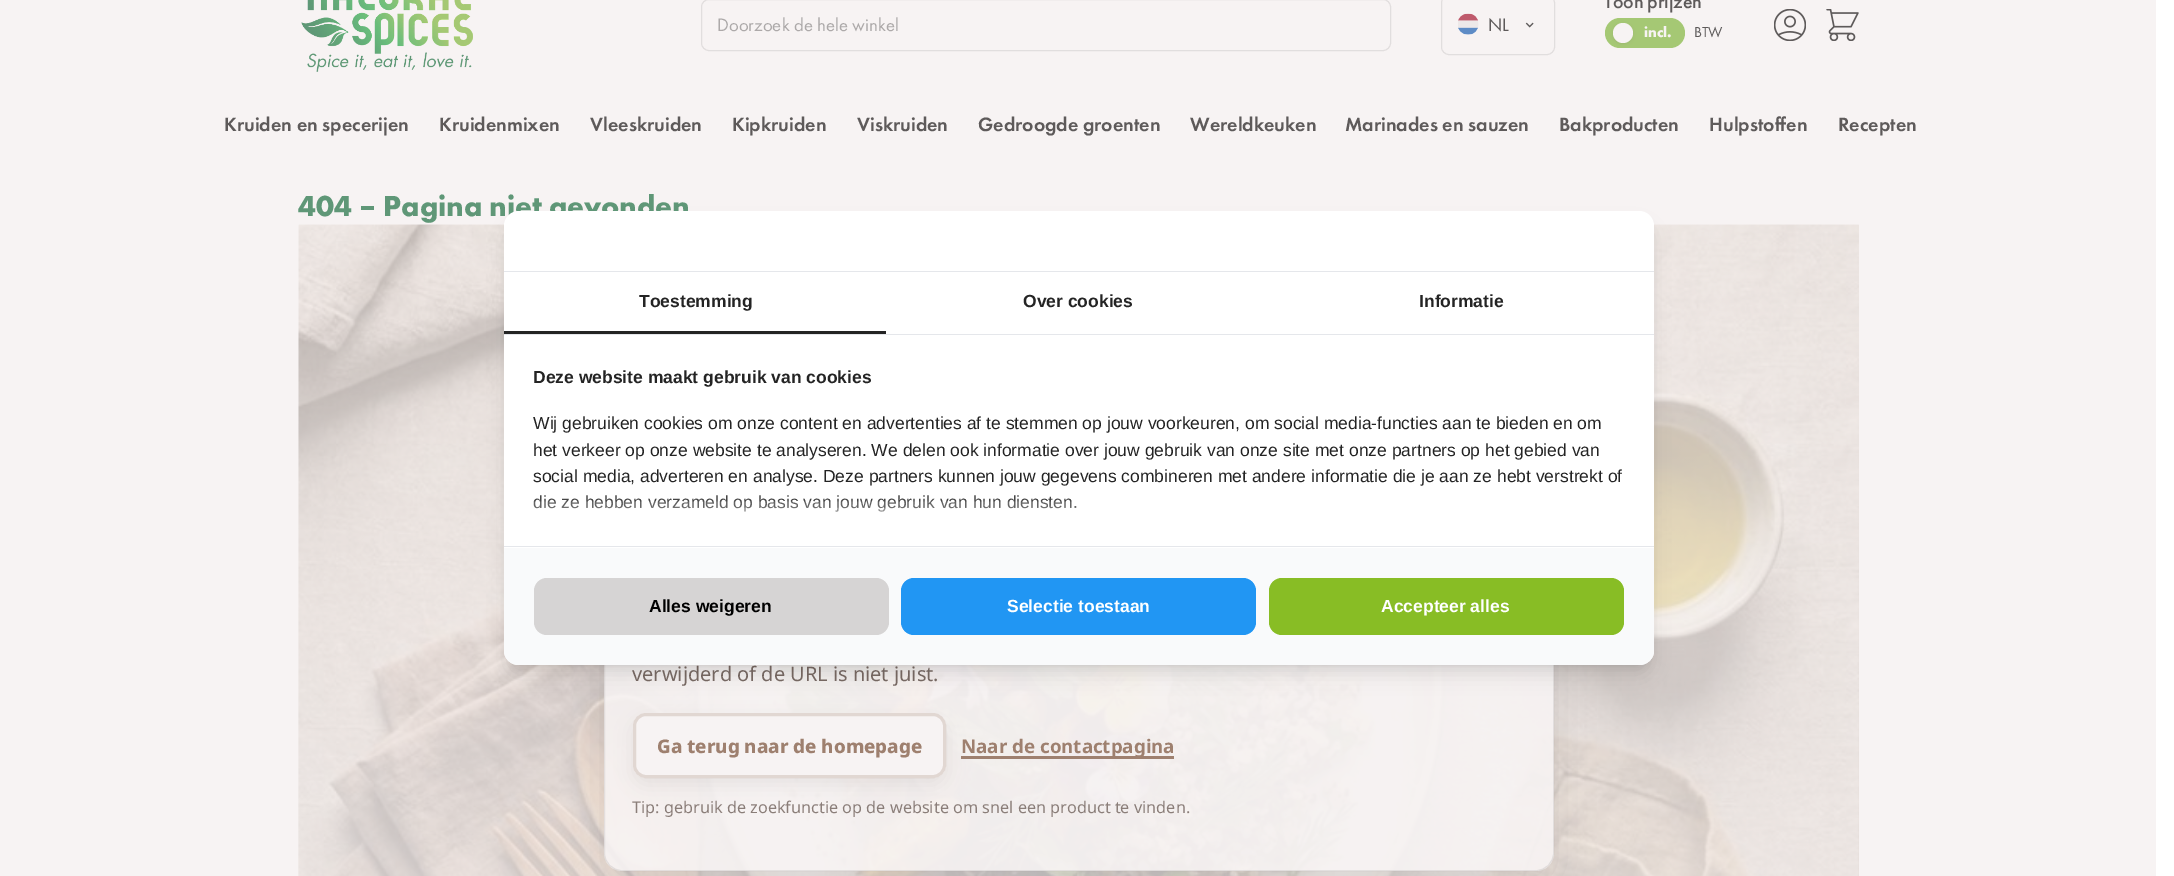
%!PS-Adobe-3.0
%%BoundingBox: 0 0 2174 876
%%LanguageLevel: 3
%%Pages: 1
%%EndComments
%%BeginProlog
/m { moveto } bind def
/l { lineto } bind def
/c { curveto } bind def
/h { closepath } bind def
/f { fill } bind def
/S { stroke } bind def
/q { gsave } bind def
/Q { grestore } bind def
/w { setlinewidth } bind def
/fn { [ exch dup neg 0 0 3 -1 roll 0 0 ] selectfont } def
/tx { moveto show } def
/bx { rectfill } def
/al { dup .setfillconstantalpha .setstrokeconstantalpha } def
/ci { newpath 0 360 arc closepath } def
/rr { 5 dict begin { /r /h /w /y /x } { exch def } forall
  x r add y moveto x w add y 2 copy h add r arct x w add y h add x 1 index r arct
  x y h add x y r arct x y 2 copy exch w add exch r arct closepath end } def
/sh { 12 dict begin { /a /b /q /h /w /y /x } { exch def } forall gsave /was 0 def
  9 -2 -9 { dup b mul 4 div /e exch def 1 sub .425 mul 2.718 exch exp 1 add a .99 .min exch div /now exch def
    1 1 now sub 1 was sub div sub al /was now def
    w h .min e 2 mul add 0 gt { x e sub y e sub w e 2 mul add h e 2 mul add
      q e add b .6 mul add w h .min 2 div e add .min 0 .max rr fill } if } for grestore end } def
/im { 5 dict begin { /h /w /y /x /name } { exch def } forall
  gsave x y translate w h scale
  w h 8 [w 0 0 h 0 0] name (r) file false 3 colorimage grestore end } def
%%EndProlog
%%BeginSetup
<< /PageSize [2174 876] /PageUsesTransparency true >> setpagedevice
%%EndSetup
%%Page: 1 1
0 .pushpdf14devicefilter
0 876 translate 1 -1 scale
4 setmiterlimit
1 setgray
0 0 2174 876 bx
(image0.raw) 301 0 172 72 im
0.859 setgray
701.5 -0.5 689 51 7.5 rr S
/FuturaPT-Regular 18.75 fn
0.514 setgray
(Doorzoek de hele winkel) 717 31 tx
0.859 setgray
1441.5 -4.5 113 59 7.5 rr S
(image1.raw) 1458 13 21 22 im
0 setgray
(NL) 1488 31 tx
(image2.raw) 1525 22 9 6 im
/FuturaPT-Medium 20 fn
1604 8 m -1 0 32 (Toon prijzen) widthshow
0.463 0.718 0.165 setrgbcolor
1605 18 80 30 15 rr f
0 setgray
1614 25 17 18 8.5 1 0.1 sh
1613 24 20 20 10 2 0.1 sh
1 setgray
1623 33 10 ci f
/FuturaPT-Bold 15 fn
(incl.) 1644 37 tx
/FuturaPT-Regular 15 fn
0 setgray
(BTW) 1694 37 tx
(image3.raw) 1774 9 32 32 im
(image4.raw) 1826 9 33 32 im
/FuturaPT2-Medium 20 fn
(Kruiden en specerijen) 224 131 tx
(Kruidenmixen) 439 131 tx
(Vleeskruiden) 590 131 tx
(Kipkruiden) 732 131 tx
(Viskruiden) 857 131 tx
(Gedroogde groenten) 978 131 tx
(Wereldkeuken) 1190 131 tx
(Marinades en sauzen) 1345 131 tx
(Bakproducten) 1559 131 tx
(Hulpstoffen) 1709 131 tx
(Recepten) 1838 131 tx
/FuturaPT-Bold 30 fn
0.004 0.396 0.184 setrgbcolor
(404 – Pagina niet gevonden) 298 216 tx
(image5.raw) 298 224 1561 652 im
q
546 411 m 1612 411 l 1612 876 l 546 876 l h 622 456 m 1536 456 l 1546 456 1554 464 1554 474 c 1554 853 l 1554 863 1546 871 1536 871 c 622 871 l 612 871 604 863 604 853 c 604 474 l 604 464 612 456 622 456 c h eoclip newpath
0 setgray
604 469 950 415 18 19 0.18 sh
Q
0.86 al
1 setgray
604 456 950 415 18 rr f
0.12 al
0 setgray
604.5 456.5 949 414 17.5 rr S
/NotoSans-Regular 20 fn
1 al
0.169 0.102 0.063 setrgbcolor
(verwijderd of de URL is niet juist.) 632 681 tx
0 setgray
633 720 313 65 13 9 0.1 sh
1 setgray
633 713 313 65 13 rr f
0.25 al
0.42 0.247 0.133 setrgbcolor
3 w
634.5 714.5 310 62 11.5 rr S
/NotoSans-ExtraBold 18.75 fn
1 al
(Ga terug naar de homepage) 657 753 tx
961 756 213 3 bx
/NotoSans-Bold 18.75 fn
(Naar de contactpagina) 961 753 tx
/NotoSans-Regular 16.25 fn
0.29 0.231 0.2 setrgbcolor
(Tip: gebruik de zoekfunctie op de website om snel een product te vinden.) 632 813 tx
0.4 al
0.922 0.886 0.886 setrgbcolor
0 0 2156 876 bx
1 al
0 setgray
509 221 1140 444 10 4 0.1 sh
508 228 1142 446 11 9.5 0.1 sh
1 setgray
504 211 1150 454 15 rr f
0.898 0.906 0.922 setrgbcolor
504 271 1150 1 bx
504 334 1150 1 bx
0.141 setgray
504 331 382 3 bx
/LiberationSans-Bold 17.5 fn
(Toestemming) 639 307 tx
(Over cookies) 1023 307 tx
(Informatie) 1419 307 tx
(Deze website maakt gebruik van cookies) 533 383 tx
/LiberationSans-Regular 17.5 fn
(Wij gebruiken cookies om onze content en advertenties af te stemmen op jouw voorkeuren, om social media-functies aan te bieden en om) 533 429 tx
(het verkeer op onze website te analyseren. We delen ook informatie over jouw gebruik van onze site met onze partners op het gebied van) 533 456 tx
(social media, adverteren en analyse. Deze partners kunnen jouw gegevens combineren met andere informatie die je aan ze hebt verstrekt of) 533 482 tx
(die ze hebben verzameld op basis van jouw gebruik van hun diensten.) 533 508 tx
q
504 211 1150 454 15 rr clip newpath
1 setgray
494 511 1170 139 0 12.5 1 sh
Q
0.976 0.98 0.984 setrgbcolor
504 548 m 1654 548 l 1654 650 l 1654 658.5 1647.5 665 1639 665 c 519 665 l 510.5 665 504 658.5 504 650 c h f
0.898 0.906 0.922 setrgbcolor
504 546 1150 1 bx
0.839 0.831 0.831 setrgbcolor
534 578 355 57 13 rr f
/LiberationSans-Bold 17.5 fn
0 setgray
(Alles weigeren) 649 612 tx
0.129 0.588 0.953 setrgbcolor
901 578 355 57 13 rr f
1 setgray
(Selectie toestaan) 1007 612 tx
0.533 0.741 0.145 setrgbcolor
1269 578 355 57 13 rr f
1 setgray
(Accepteer alles) 1381 612 tx
.poppdf14devicefilter showpage
%%EOF
